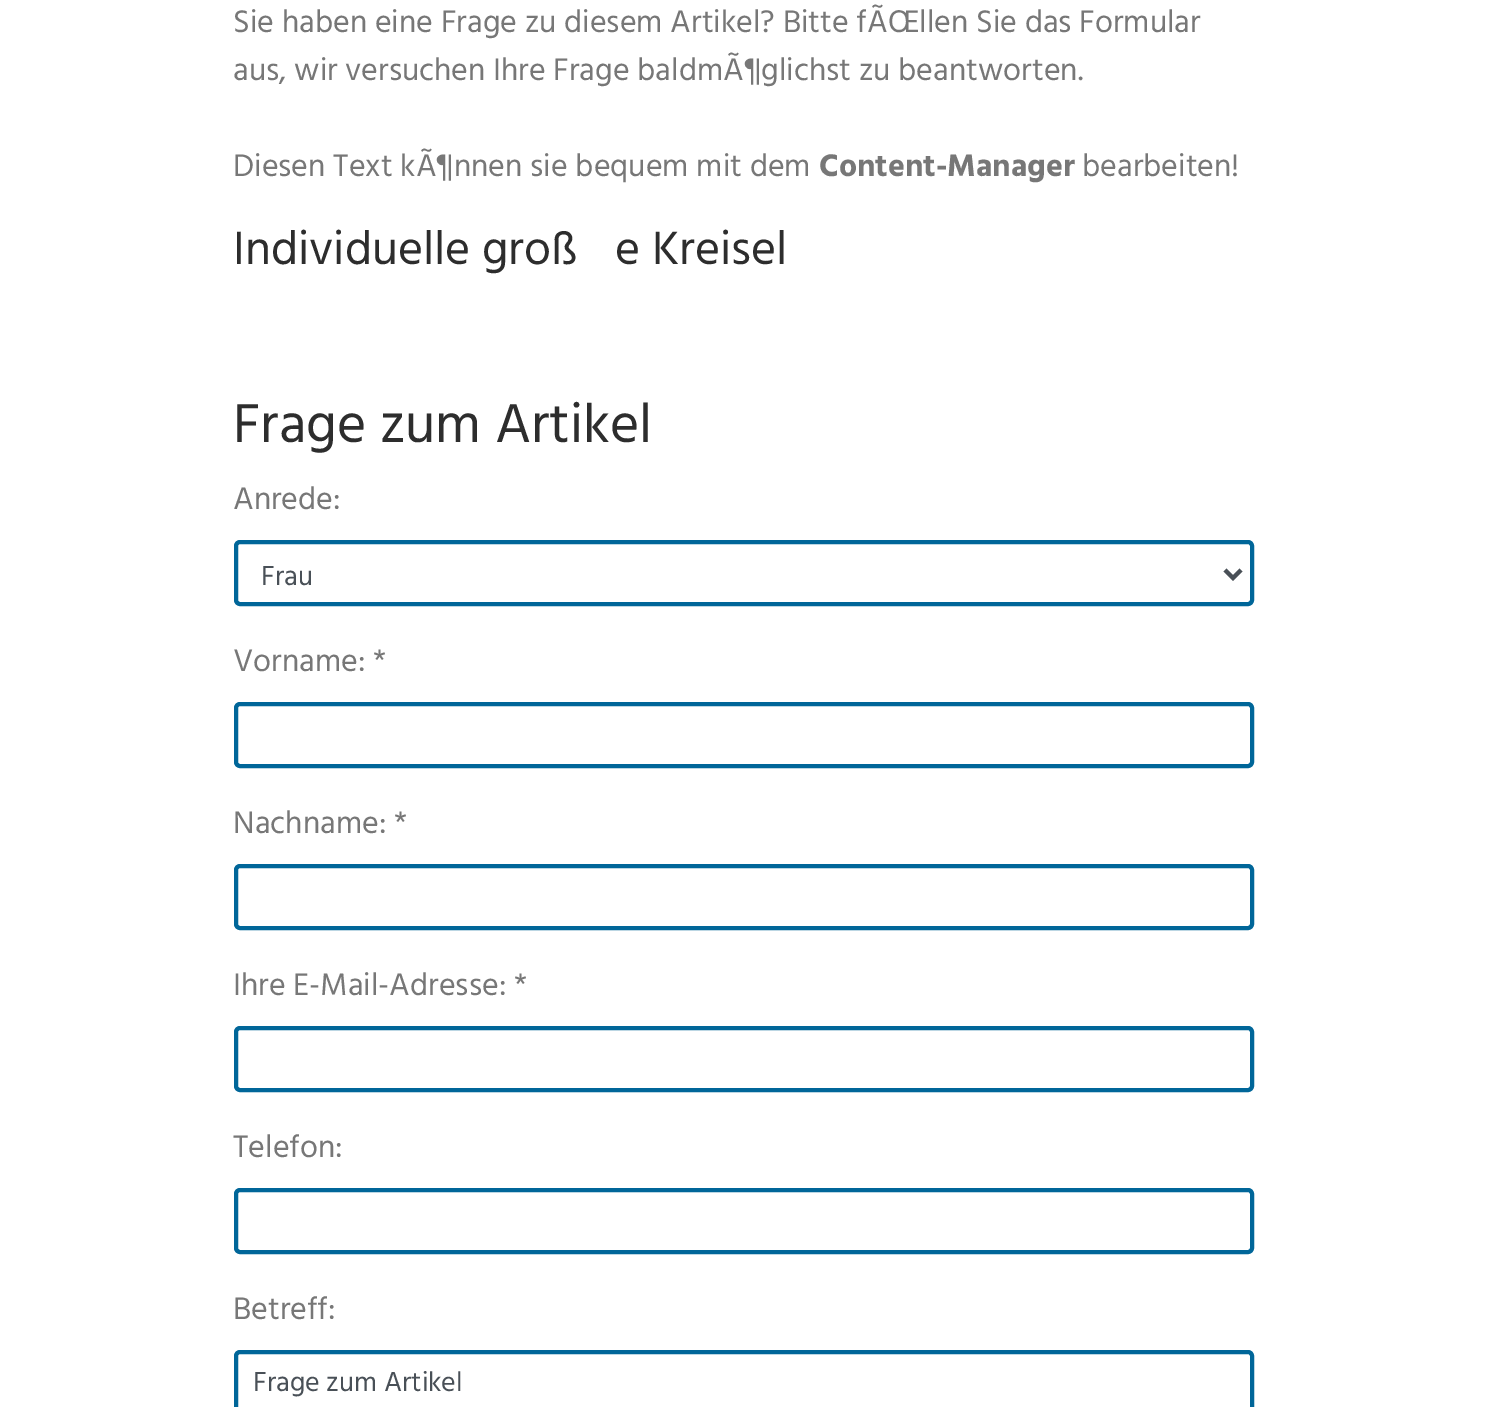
%!PS-Adobe-3.0
%%BoundingBox: 0 0 1486 1407
%%LanguageLevel: 3
%%Pages: 1
%%EndComments
%%BeginProlog
/m { moveto } bind def
/l { lineto } bind def
/S { stroke } bind def
/w { setlinewidth } bind def
/fn { [ exch dup neg 0 0 3 -1 roll 0 0 ] selectfont } def
/tx { moveto show } def
/bx { rectfill } def
/rr { 5 dict begin { /r /h /w /y /x } { exch def } forall
  x r add y moveto x w add y 2 copy h add r arct x w add y h add x 1 index r arct
  x y h add x y r arct x y 2 copy exch w add exch r arct closepath end } def
%%EndProlog
%%BeginSetup
<< /PageSize [1486 1407] >> setpagedevice
%%EndSetup
%%Page: 1 1
0 1407 translate 1 -1 scale
4 setmiterlimit
1 setgray
0 0 1486 1407 bx
/Hind-Regular 32 fn
0.467 setgray
(Sie haben eine Frage zu diesem Artikel? Bitte fÃŒllen Sie das Formular) 233 32 tx
(aus, wir versuchen Ihre Frage baldmÃ¶glichst zu beantworten.) 233 80 tx
(Diesen Text kÃ¶nnen sie bequem mit dem) 233 176 tx
/Hind-Bold 32 fn
(Content-Manager) 819 176 tx
/Hind-Regular 32 fn
(bearbeiten!) 1082 176 tx
/Hind-Regular 48 fn
0.176 setgray
(Individuelle groß) 233 264 tx
(e Kreisel) 615 264 tx
/Hind-Regular 56 fn
(Frage zum Artikel) 233 442 tx
/Hind-Regular 32 fn
0.467 setgray
(Anrede:) 233 509 tx
0 0.4 0.6 setrgbcolor
4 w
236 542 1016 62 4 rr S
0.286 0.314 0.341 setrgbcolor
1225 570 m 1233 578 l 1241 570 l S
/Hind-Regular 28 fn
(Frau) 261 585 tx
/Hind-Regular 32 fn
0.467 setgray
(Vorname: *) 233 671 tx
0 0.4 0.6 setrgbcolor
236 704 1016 62 4 rr S
0.467 setgray
(Nachname: *) 233 833 tx
0 0.4 0.6 setrgbcolor
236 866 1016 62 4 rr S
0.467 setgray
(Ihre E-Mail-Adresse: *) 233 995 tx
0 0.4 0.6 setrgbcolor
236 1028 1016 62 4 rr S
0.467 setgray
(Telefon:) 233 1157 tx
0 0.4 0.6 setrgbcolor
236 1190 1016 62 4 rr S
0.467 setgray
(Betreff:) 233 1319 tx
0 0.4 0.6 setrgbcolor
236 1352 1016 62 4 rr S
/Hind-Regular 28 fn
0.286 0.314 0.341 setrgbcolor
(Frage zum Artikel) 253 1391 tx
showpage
%%EOF
